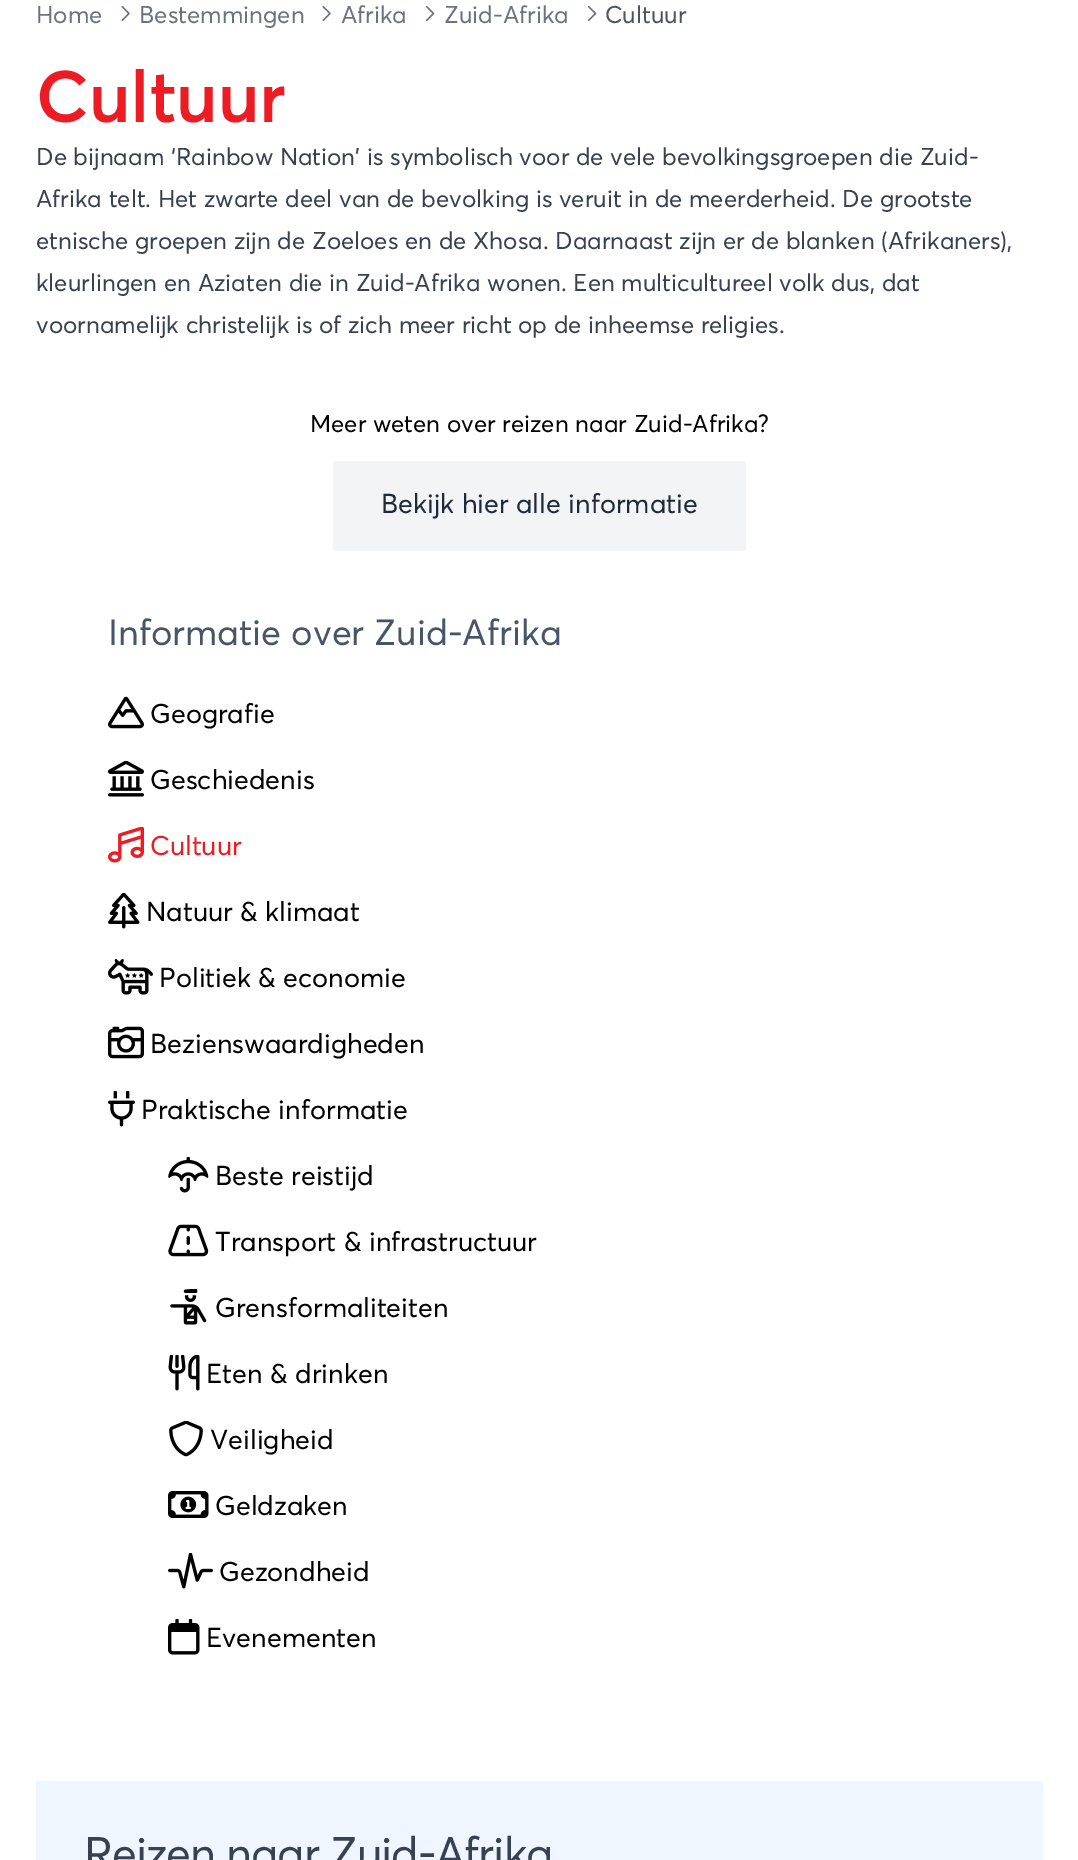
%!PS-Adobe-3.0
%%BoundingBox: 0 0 1078 1860
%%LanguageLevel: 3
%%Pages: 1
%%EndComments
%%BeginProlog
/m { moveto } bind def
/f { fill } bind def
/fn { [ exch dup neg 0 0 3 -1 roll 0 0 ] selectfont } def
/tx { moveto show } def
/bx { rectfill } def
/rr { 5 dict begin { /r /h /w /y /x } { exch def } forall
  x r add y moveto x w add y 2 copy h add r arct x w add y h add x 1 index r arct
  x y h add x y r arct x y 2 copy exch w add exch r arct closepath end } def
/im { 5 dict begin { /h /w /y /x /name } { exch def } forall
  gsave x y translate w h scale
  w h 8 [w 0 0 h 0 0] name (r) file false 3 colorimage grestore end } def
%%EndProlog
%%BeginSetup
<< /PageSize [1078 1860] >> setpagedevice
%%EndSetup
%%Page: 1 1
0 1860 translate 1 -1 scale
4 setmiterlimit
1 setgray
0 0 1078 1860 bx
/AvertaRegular-Regular 24 fn
0.42 0.447 0.502 setrgbcolor
(Home) 36 23 tx
(image0.raw) 121 6 9 15 im
(Bestemmingen) 139 23 tx
(image0.raw) 322 6 9 15 im
(Afrika) 341 23 tx
(image1.raw) 426 6 9 15 im
(Zuid-Afrika) 444 23 tx
(image1.raw) 588 6 9 15 im
0.294 0.333 0.388 setrgbcolor
(Cultuur) 605 23 tx
/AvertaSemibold-SemiBold 72 fn
0.929 0.11 0.141 setrgbcolor
(Cultuur) 36 122 tx
/AvertaRegular-Regular 24 fn
0.216 0.255 0.318 setrgbcolor
(De bijnaam ‘Rainbow Nation’ is symbolisch voor de vele bevolkingsgroepen die Zuid-) 36 165 tx
(Afrika telt. Het zwarte deel van de bevolking is veruit in de meerderheid. De grootste) 36 207 tx
(etnische groepen zijn de Zoeloes en de Xhosa. Daarnaast zijn er de blanken \(Afrikaners\),) 36 249 tx
(kleurlingen en Aziaten die in Zuid-Afrika wonen. Een multicultureel volk dus, dat) 36 291 tx
(voornamelijk christelijk is of zich meer richt op de inheemse religies.) 36 333 tx
0 setgray
(Meer weten over reizen naar Zuid-Afrika?) 310 432 tx
0.953 0.957 0.965 setrgbcolor
333 461 413 90 3 rr f
/AvertaRegular-Regular 27 fn
0.122 0.161 0.216 setrgbcolor
(Bekijk hier alle informatie) 381 513 tx
/AvertaRegular-Regular 36 fn
0.278 0.333 0.412 setrgbcolor
(Informatie over Zuid-Afrika) 108 645 tx
(image2.raw) 108 696 36 33 im
/AvertaRegular-Regular 27 fn
0 setgray
(Geografie) 150 723 tx
(image3.raw) 108 761 36 36 im
(Geschiedenis) 150 789 tx
(image4.raw) 108 827 36 36 im
0.929 0.11 0.141 setrgbcolor
(Cultuur) 150 855 tx
(image5.raw) 108 893 32 36 im
0 setgray
(Natuur & klimaat) 146 921 tx
(image6.raw) 108 959 45 36 im
(Politiek & economie) 159 987 tx
(image7.raw) 108 1026 36 33 im
(Bezienswaardigheden) 150 1053 tx
(image8.raw) 108 1091 27 36 im
(Praktische informatie) 141 1119 tx
(image9.raw) 168 1157 41 36 im
(Beste reistijd) 215 1185 tx
(image10.raw) 168 1224 41 33 im
(Transport & infrastructuur) 215 1251 tx
(image11.raw) 170 1289 37 36 im
(Grensformaliteiten) 215 1317 tx
(image12.raw) 168 1355 32 36 im
(Eten & drinken) 206 1383 tx
(image13.raw) 169 1421 34 36 im
(Veiligheid) 210 1449 tx
(image14.raw) 168 1491 41 27 im
(Geldzaken) 215 1515 tx
(image15.raw) 168 1553 45 36 im
(Gezondheid) 219 1581 tx
(image16.raw) 168 1619 32 36 im
(Evenementen) 206 1647 tx
0.937 0.965 1 setrgbcolor
36 1781 1007 79 bx
/AvertaRegular-Regular 45 fn
0.216 0.255 0.318 setrgbcolor
84 1869 m -1.1 0 (Reizen naar Zuid-Afrika) ashow
showpage
%%EOF
